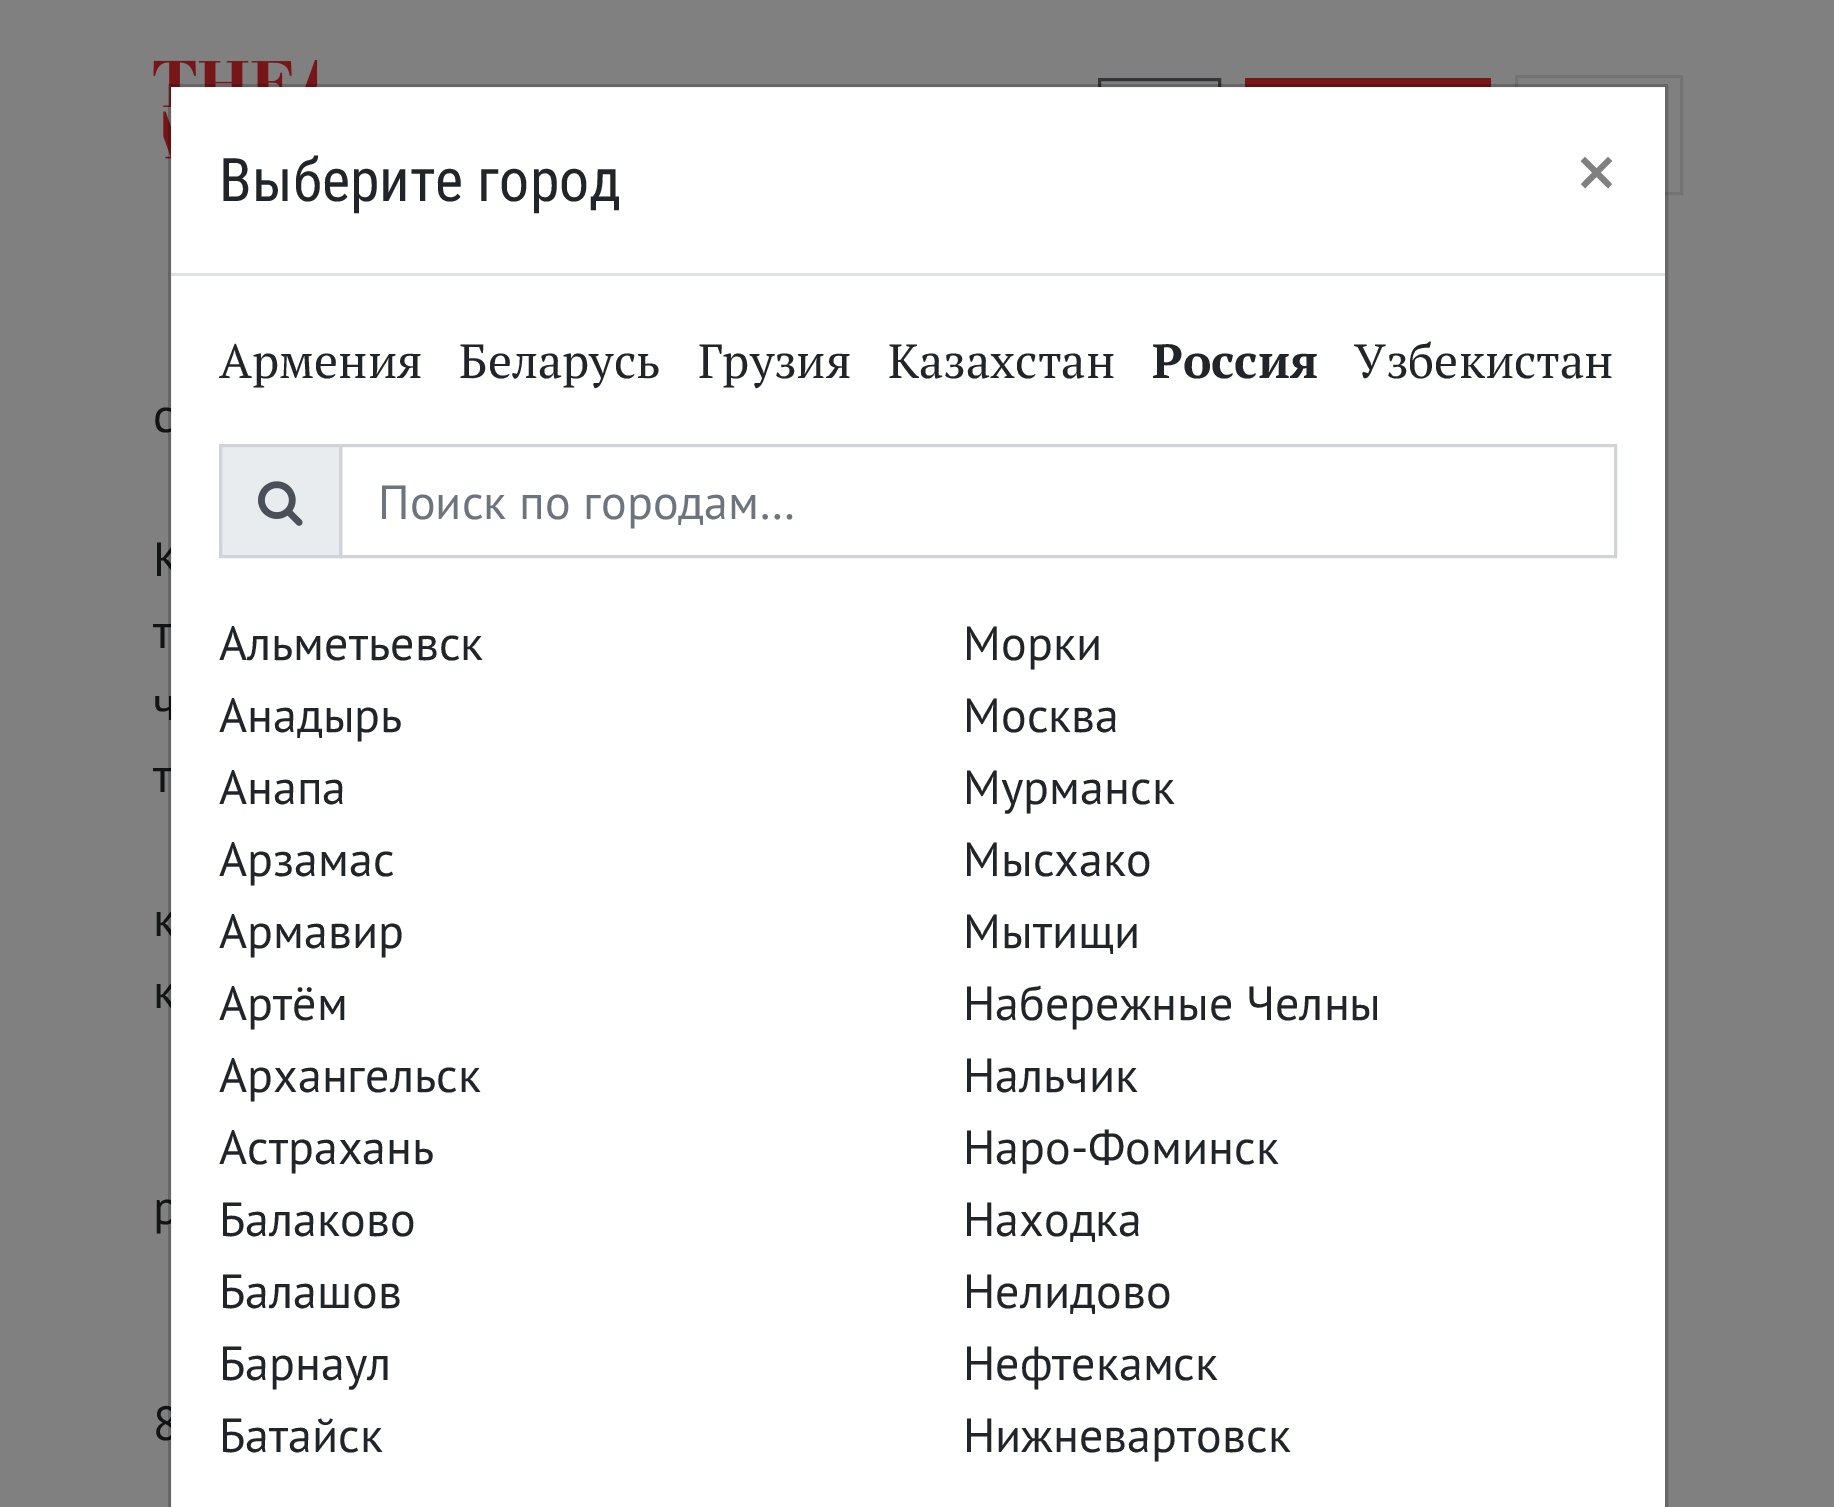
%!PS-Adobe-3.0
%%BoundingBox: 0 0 1834 1507
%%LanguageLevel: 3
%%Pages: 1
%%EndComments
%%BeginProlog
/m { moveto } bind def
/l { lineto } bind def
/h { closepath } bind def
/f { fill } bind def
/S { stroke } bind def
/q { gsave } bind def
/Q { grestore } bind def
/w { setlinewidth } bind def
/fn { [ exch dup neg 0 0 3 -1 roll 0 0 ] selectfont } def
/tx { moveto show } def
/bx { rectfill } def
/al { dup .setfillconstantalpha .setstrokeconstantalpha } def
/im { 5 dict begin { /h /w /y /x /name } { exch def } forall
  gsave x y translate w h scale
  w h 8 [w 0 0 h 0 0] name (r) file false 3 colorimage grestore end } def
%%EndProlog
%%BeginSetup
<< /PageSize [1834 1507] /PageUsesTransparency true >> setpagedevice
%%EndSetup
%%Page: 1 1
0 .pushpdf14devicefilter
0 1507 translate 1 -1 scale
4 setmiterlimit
0.502 setgray
0 0 1834 1507 bx
(image0.raw) 153 60 165 99 im
0.196 0.212 0.224 setrgbcolor
3 w
1099.5 79.5 120 111 rectstroke
0.467 0.09 0.098 setrgbcolor
1245 78 246 9 bx
0.451 setgray
1516.5 76.5 165 117 rectstroke
/PTSans-Regular 48 fn
0.067 0.075 0.082 setrgbcolor
(с) 153 432 tx
(К) 153 576 tx
(т) 153 648 tx
(ч) 153 720 tx
(т) 153 792 tx
(к) 153 936 tx
(к) 153 1008 tx
(р) 153 1224 tx
(8) 153 1440 tx
1 setgray
171 87 1494 1420 bx
0.2 al
0 setgray
169.5 85.5 1497 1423 rectstroke
1 al
0.871 0.886 0.902 setrgbcolor
171 273 1494 3 bx
/RobotoCondensed-Regular 60 fn
0.129 0.145 0.161 setrgbcolor
(Выберите город) 219 201 tx
/OpenSans-SemiBold 72 fn
0.502 setgray
(×) 1576 198 tx
/PTSerif-Regular 48 fn
0.129 0.145 0.161 setrgbcolor
(Армения) 219 378 tx
(Беларусь) 459 378 tx
(Грузия) 698 378 tx
(Казахстан) 888 378 tx
/PTSerif-Bold 48 fn
(Россия) 1152 378 tx
/PTSerif-Regular 48 fn
(Узбекистан) 1354 378 tx
0.914 0.925 0.937 setrgbcolor
220.5 445.5 m 340.5 445.5 l 340.5 556.5 l 220.5 556.5 l h q f Q
0.808 0.831 0.855 setrgbcolor
S
(image1.raw) 258 481 45 45 im
340.5 445.5 1275 111 rectstroke
/PTSans-Regular 48 fn
0.424 0.459 0.49 setrgbcolor
(Поиск по городам…) 378 519 tx
0.129 0.145 0.161 setrgbcolor
(Альметьевск) 219 660 tx
(Морки) 963 660 tx
(Анадырь) 219 732 tx
(Москва) 963 732 tx
(Анапа) 219 804 tx
(Мурманск) 963 804 tx
(Арзамас) 219 876 tx
(Мысхако) 963 876 tx
(Армавир) 219 948 tx
(Мытищи) 963 948 tx
(Артём) 219 1020 tx
(Набережные Челны) 963 1020 tx
(Архангельск) 219 1092 tx
(Нальчик) 963 1092 tx
(Астрахань) 219 1164 tx
(Наро-Фоминск) 963 1164 tx
(Балаково) 219 1236 tx
(Находка) 963 1236 tx
(Балашов) 219 1308 tx
(Нелидово) 963 1308 tx
(Барнаул) 219 1380 tx
(Нефтекамск) 963 1380 tx
(Батайск) 219 1452 tx
(Нижневартовск) 963 1452 tx
.poppdf14devicefilter showpage
%%EOF
